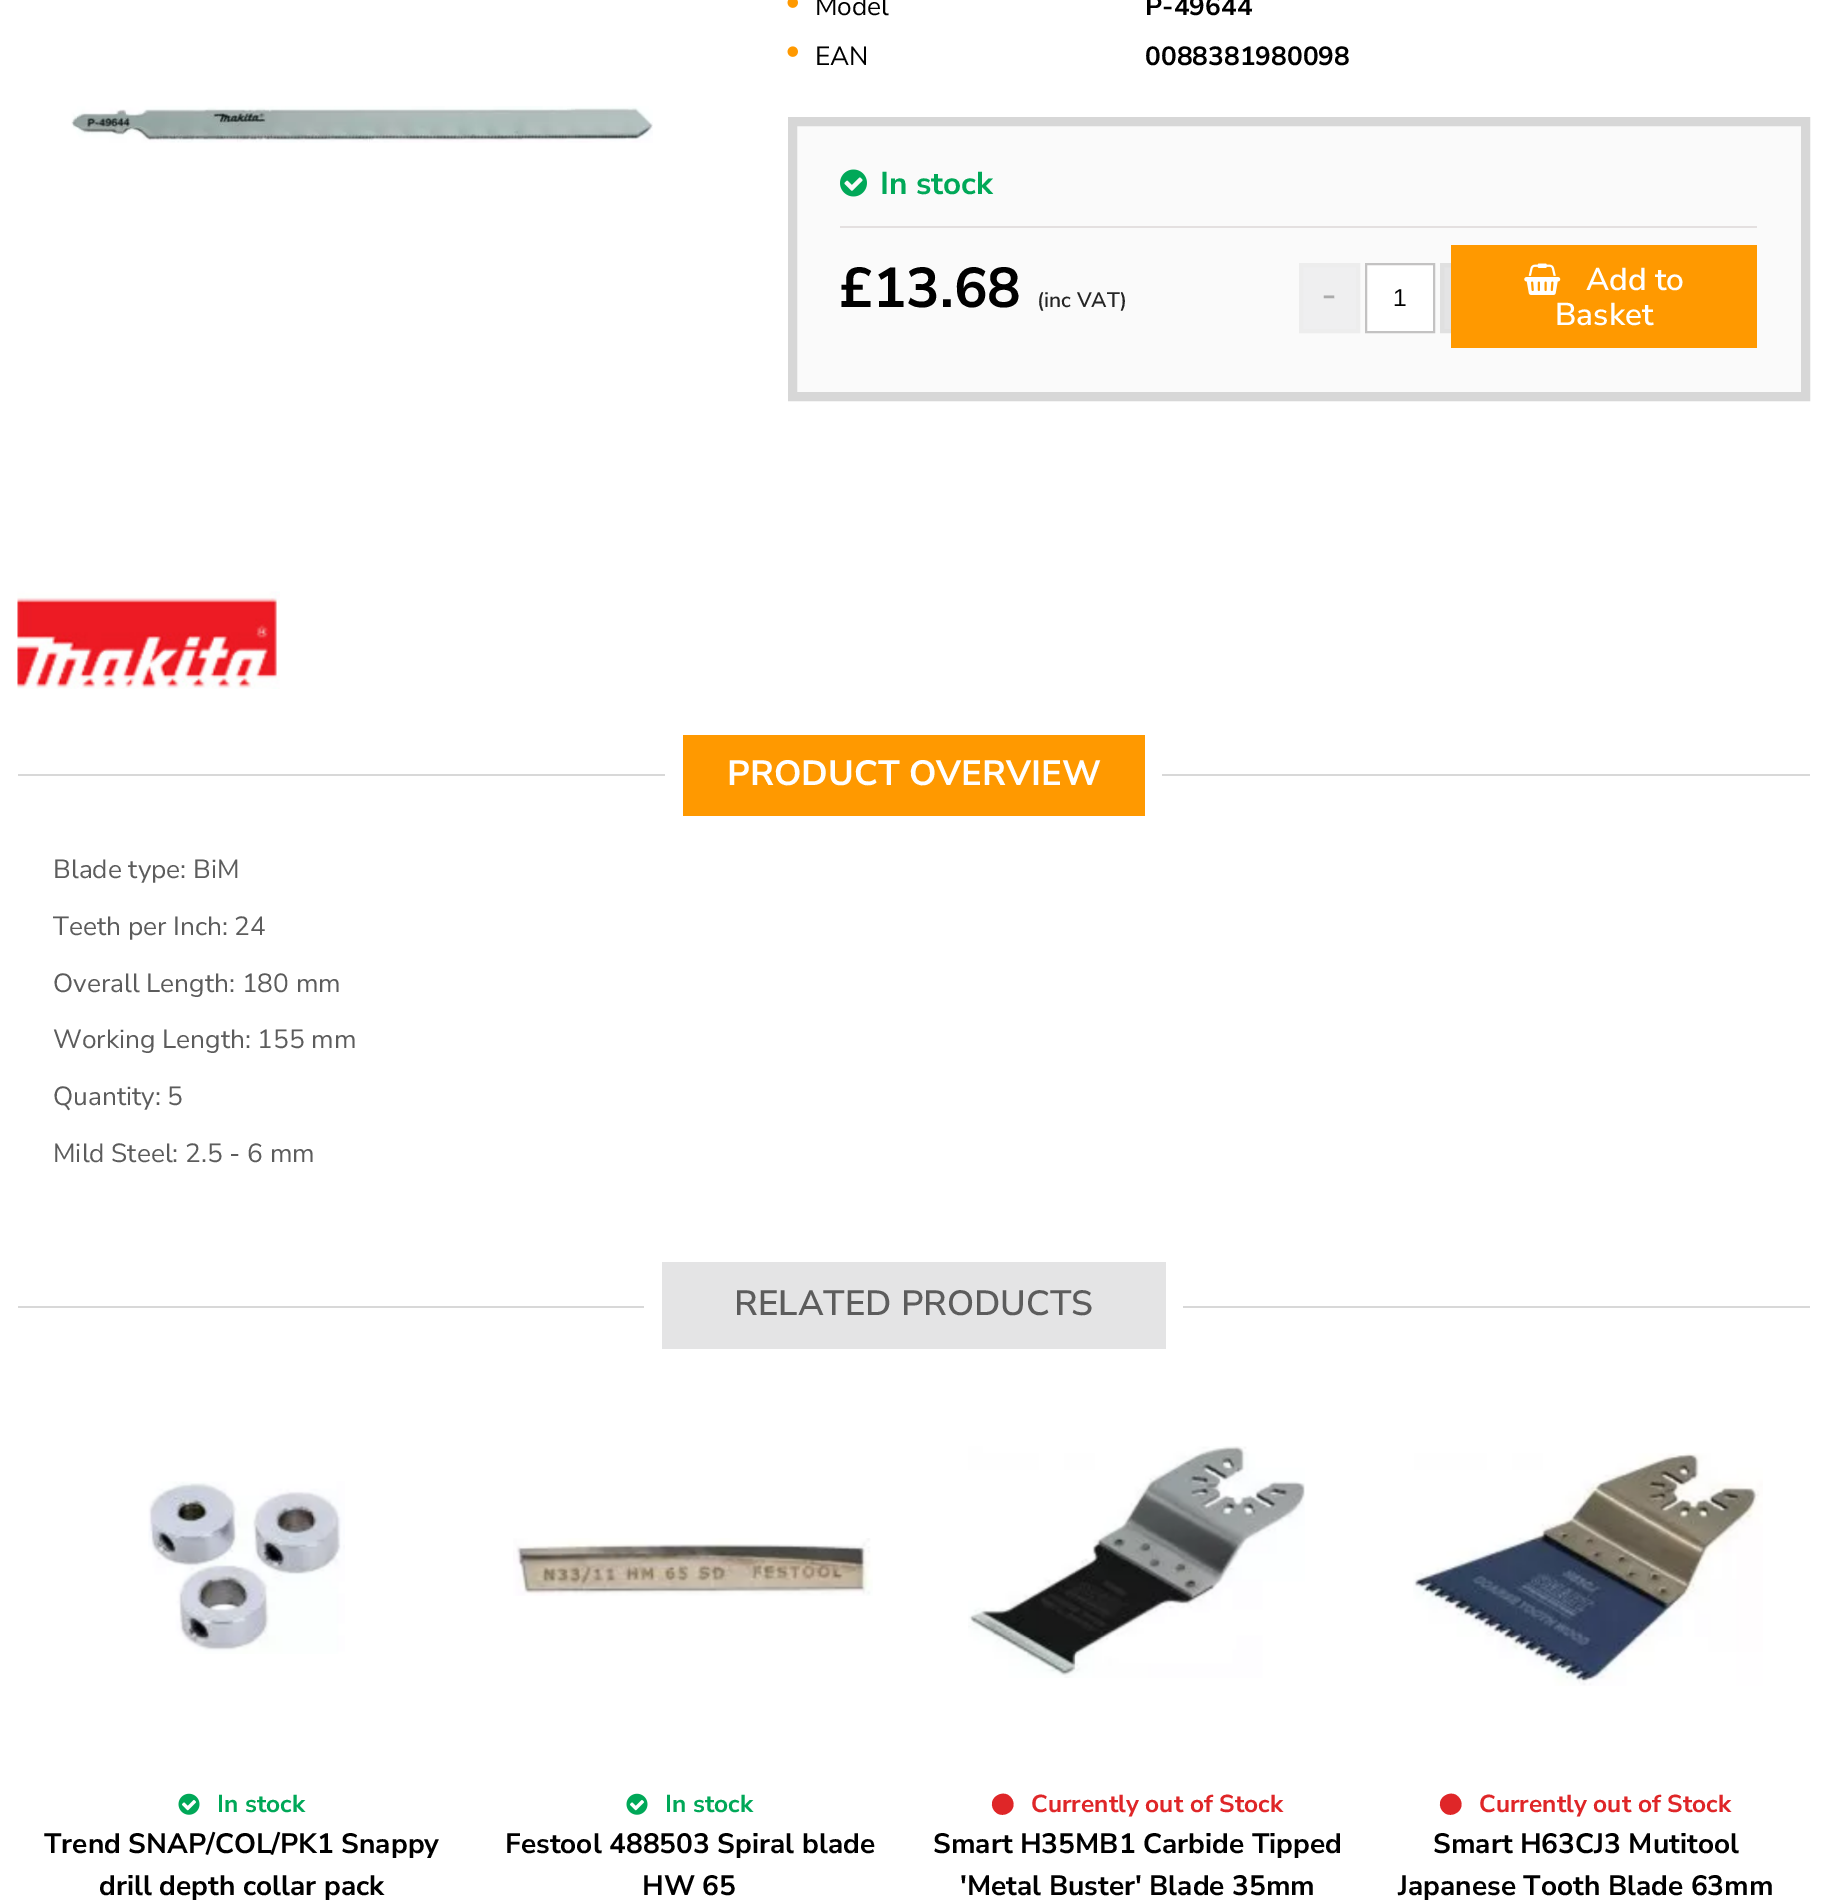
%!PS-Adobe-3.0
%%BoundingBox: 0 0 1826 1903
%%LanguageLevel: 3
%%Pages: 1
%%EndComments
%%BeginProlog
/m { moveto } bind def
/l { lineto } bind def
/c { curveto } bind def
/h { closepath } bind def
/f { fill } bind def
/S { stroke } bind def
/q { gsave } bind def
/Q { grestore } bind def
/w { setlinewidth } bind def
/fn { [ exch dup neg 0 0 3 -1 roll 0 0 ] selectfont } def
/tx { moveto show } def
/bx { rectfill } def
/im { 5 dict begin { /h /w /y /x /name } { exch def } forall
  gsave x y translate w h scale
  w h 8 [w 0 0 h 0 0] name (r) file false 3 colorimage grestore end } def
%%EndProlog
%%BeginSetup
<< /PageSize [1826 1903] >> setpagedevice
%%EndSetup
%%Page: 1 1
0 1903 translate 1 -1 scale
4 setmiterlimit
1 setgray
0 0 1826 1903 bx
(image0.raw) 71 106 582 37 im
(image1.raw) 17 591 263 98 im
(image2.raw) 787 0 11 8 im
/NunitoSans-Regular 26.25 fn
0 setgray
(Model) 815 15 tx
/NunitoSans-Bold 26.25 fn
(P-49644) 1145 15 tx
(image3.raw) 787 46 11 11 im
/NunitoSans-Regular 26.25 fn
(EAN) 815 65 tx
/NunitoSans-Bold 26.25 fn
(0088381980098) 1145 65 tx
0.98 setgray
792.5 121.5 m 1805.5 121.5 l 1805.5 396.5 l 792.5 396.5 l h q f Q
0.843 setgray
9 w
S
(image4.raw) 840 169 27 28 im
/NunitoSans-Bold 31.5 fn
0 0.659 0.345 setrgbcolor
(In stock) 880 194 tx
0.894 0.878 0.878 setrgbcolor
840 226 917 2 bx
/NunitoSans-Bold 56 fn
0 setgray
(£13.68) 839 307 tx
/NunitoSans-SemiBold 21 fn
0.145 setgray
(\(inc VAT\)) 1037 307 tx
0.937 0.937 0.941 setrgbcolor
1301 265 m 1358 265 l 1358 331 l 1301 331 l h q f Q
0.929 setgray
4 w
S
/NunitoSans-Regular 38 fn
0.671 setgray
(-) 1321 307 tx
1 setgray
1366 264 m 1434 264 l 1434 332 l 1366 332 l h q f Q
0.765 0.761 0.761 setrgbcolor
2 w
S
/LiberationSans-Regular 24.5 fn
0 setgray
(1) 1393 306 tx
0.894 0.894 0.898 setrgbcolor
1444 267 7 62 bx
0.878 setgray
4 w
1442 265 58 66 rectstroke
1 0.6 0 setrgbcolor
1451 245 306 103 bx
(image5.raw) 1524 263 37 32 im
/NunitoSans-SemiBold 31.5 fn
1 setgray
(Add to) 1586 290 tx
(Basket) 1555 325 tx
0.847 setgray
18 774 1792 2 bx
1 setgray
665 774 497 2 bx
1 0.6 0 setrgbcolor
683 735 462 81 bx
/NunitoSans-Bold 35 fn
1 setgray
(PRODUCT OVERVIEW) 727 785 tx
/NunitoSans-Regular 26.25 fn
0.361 setgray
(Blade type: BiM) 53 878 tx
(Teeth per Inch: 24) 53 935 tx
(Overall Length: 180 mm) 53 992 tx
(Working Length: 155 mm) 53 1048 tx
(Quantity: 5) 53 1105 tx
(Mild Steel: 2.5 - 6 mm) 53 1162 tx
0.894 0.894 0.898 setrgbcolor
662 1262 504 87 bx
0.847 setgray
18 1306 626 2 bx
/NunitoSans-SemiBold 35 fn
0.361 setgray
(RELATED PRODUCTS) 734 1315 tx
0.847 setgray
1183 1306 627 2 bx
(image6.raw) 148 1481 197 173 im
(image7.raw) 178 1793 22 22 im
/NunitoSans-Bold 24.5 fn
0 0.659 0.345 setrgbcolor
(In stock) 217 1812 tx
/NunitoSans-Bold 28 fn
0 setgray
(Trend SNAP/COL/PK1 Snappy) 44 1853 tx
(drill depth collar pack) 99 1895 tx
(image8.raw) 513 1538 360 58 im
(image7.raw) 626 1793 22 22 im
/NunitoSans-Bold 24.5 fn
0 0.659 0.345 setrgbcolor
(In stock) 665 1812 tx
/NunitoSans-Bold 28 fn
0 setgray
(Festool 488503 Spiral blade) 505 1853 tx
(HW 65) 642 1895 tx
(image9.raw) 968 1446 337 232 im
/NunitoSans-Bold 24.5 fn
0.875 0.149 0.157 setrgbcolor
(Currently out of Stock) 1031 1812 tx
1012 1799 m 1019 1811 1000.5 1821.5 993.5 1809.5 c 986.5 1797.5 1005 1787 1012 1799 c h f
/NunitoSans-Bold 28 fn
0 setgray
(Smart H35MB1 Carbide Tipped) 933 1853 tx
('Metal Buster' Blade 35mm) 960 1895 tx
(image10.raw) 1413 1453 350 233 im
/NunitoSans-Bold 24.5 fn
0.875 0.149 0.157 setrgbcolor
(Currently out of Stock) 1479 1812 tx
1460 1799 m 1467 1811 1448.5 1821.5 1441.5 1809.5 c 1434.5 1797.5 1453 1787 1460 1799 c h f
/NunitoSans-Bold 28 fn
0 setgray
(Smart H63CJ3 Mutitool) 1433 1853 tx
(Japanese Tooth Blade 63mm) 1398 1895 tx
showpage
%%EOF
